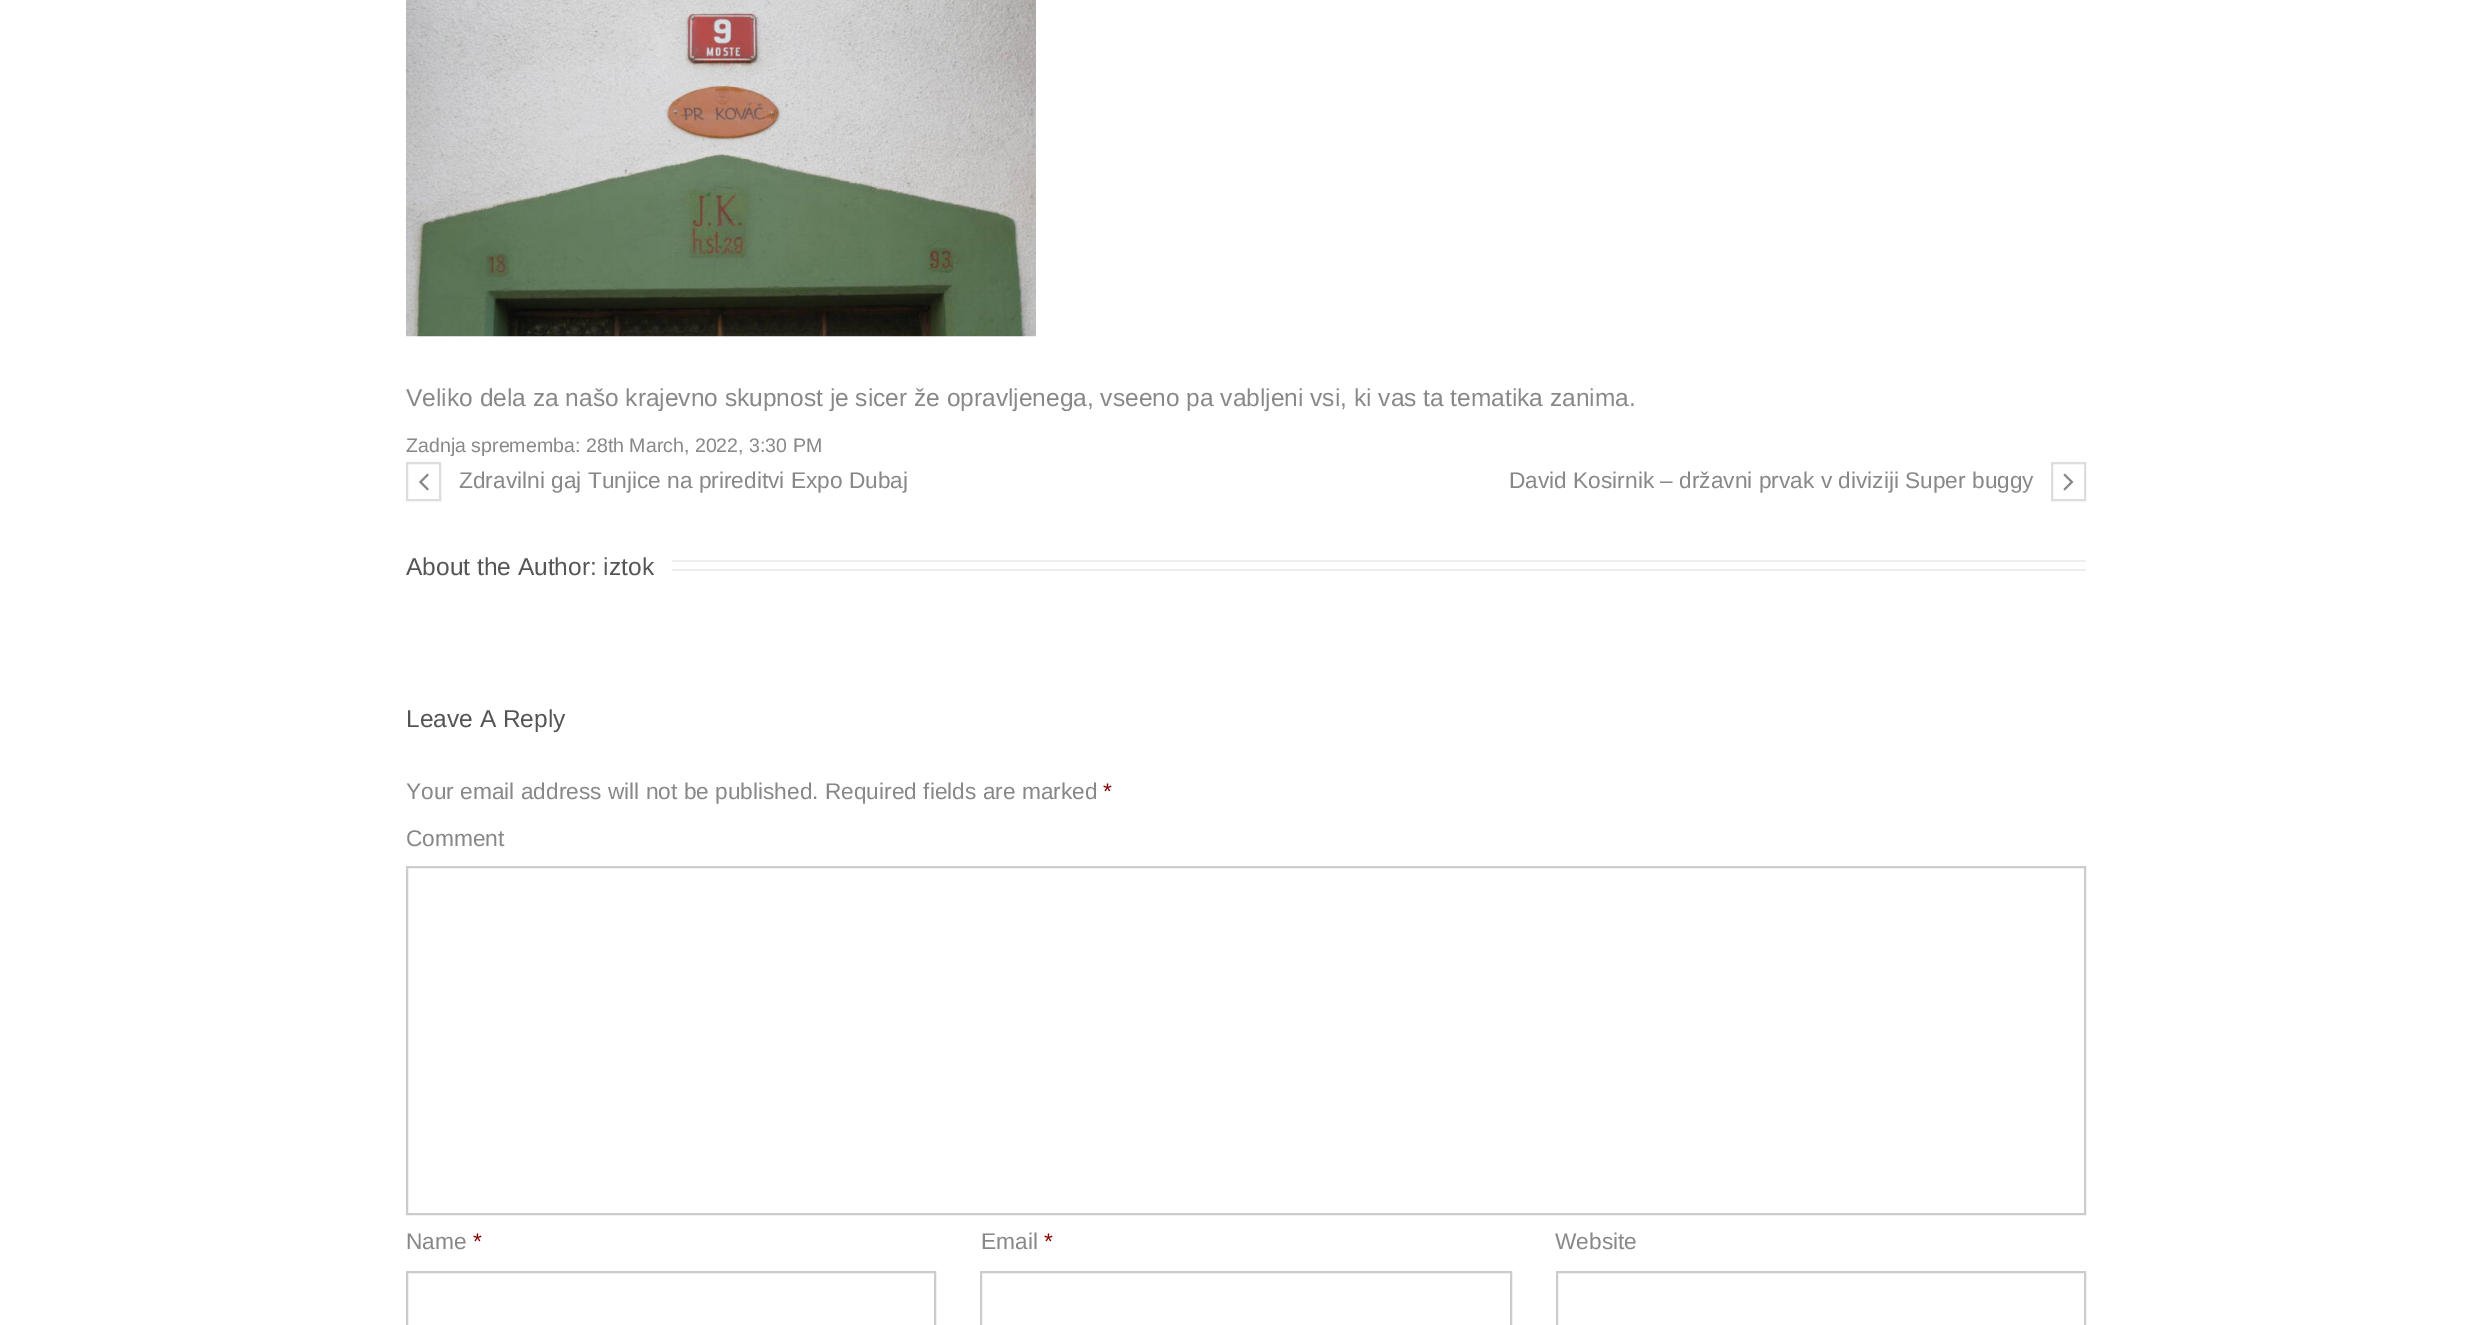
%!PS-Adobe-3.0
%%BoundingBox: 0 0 2491 1325
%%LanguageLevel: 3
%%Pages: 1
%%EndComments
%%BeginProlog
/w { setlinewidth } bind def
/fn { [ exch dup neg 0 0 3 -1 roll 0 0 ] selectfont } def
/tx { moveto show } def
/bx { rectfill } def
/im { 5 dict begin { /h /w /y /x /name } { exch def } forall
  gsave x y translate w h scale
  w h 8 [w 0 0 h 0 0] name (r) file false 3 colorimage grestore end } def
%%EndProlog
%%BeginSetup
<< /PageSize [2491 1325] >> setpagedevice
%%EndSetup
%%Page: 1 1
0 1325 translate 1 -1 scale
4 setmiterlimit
1 setgray
0 0 2491 1325 bx
(image0.raw) 406 0 630 337 im
/LiberationSans-Regular 24.5 fn
0.533 setgray
(Veliko dela za našo krajevno skupnost je sicer že opravljenega, vseeno pa vabljeni vsi, ki vas ta tematika zanima.) 406 406 tx
/LiberationSans-Regular 19.6 fn
(Zadnja sprememba: 28th March, 2022, 3:30 PM) 406 452 tx
0.867 setgray
2 w
407 463 33 37 rectstroke
(image1.raw) 419 473 10 18 im
/LiberationSans-Regular 22.7 fn
0.533 setgray
(Zdravilni gaj Tunjice na prireditvi Expo Dubaj) 459 488 tx
(David Kosirnik – državni prvak v diviziji Super buggy) 1509 488 tx
0.867 setgray
2052 463 33 37 rectstroke
(image2.raw) 2063 473 11 18 im
/LiberationSans-Regular 24.5 fn
0.333 setgray
(About the Author: iztok) 406 575 tx
0.933 setgray
672 560 1414 2 bx
672 569 1414 2 bx
0.333 setgray
(Leave A Reply) 406 727 tx
/LiberationSans-Regular 22.7 fn
0.533 setgray
(Your email address will not be published. Required fields are marked) 406 799 tx
0.533 0 0 setrgbcolor
(*) 1103 799 tx
0.533 setgray
(Comment) 406 846 tx
0.8 setgray
407 867 1678 347 rectstroke
0.533 setgray
(Name) 406 1249 tx
0.533 0 0 setrgbcolor
(*) 473 1249 tx
0.8 setgray
407 1272 528 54 rectstroke
0.533 setgray
(Email) 981 1249 tx
0.533 0 0 setrgbcolor
(*) 1044 1249 tx
0.8 setgray
981 1272 530 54 rectstroke
0.533 setgray
(Website) 1555 1249 tx
0.8 setgray
1557 1272 528 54 rectstroke
showpage
%%EOF
